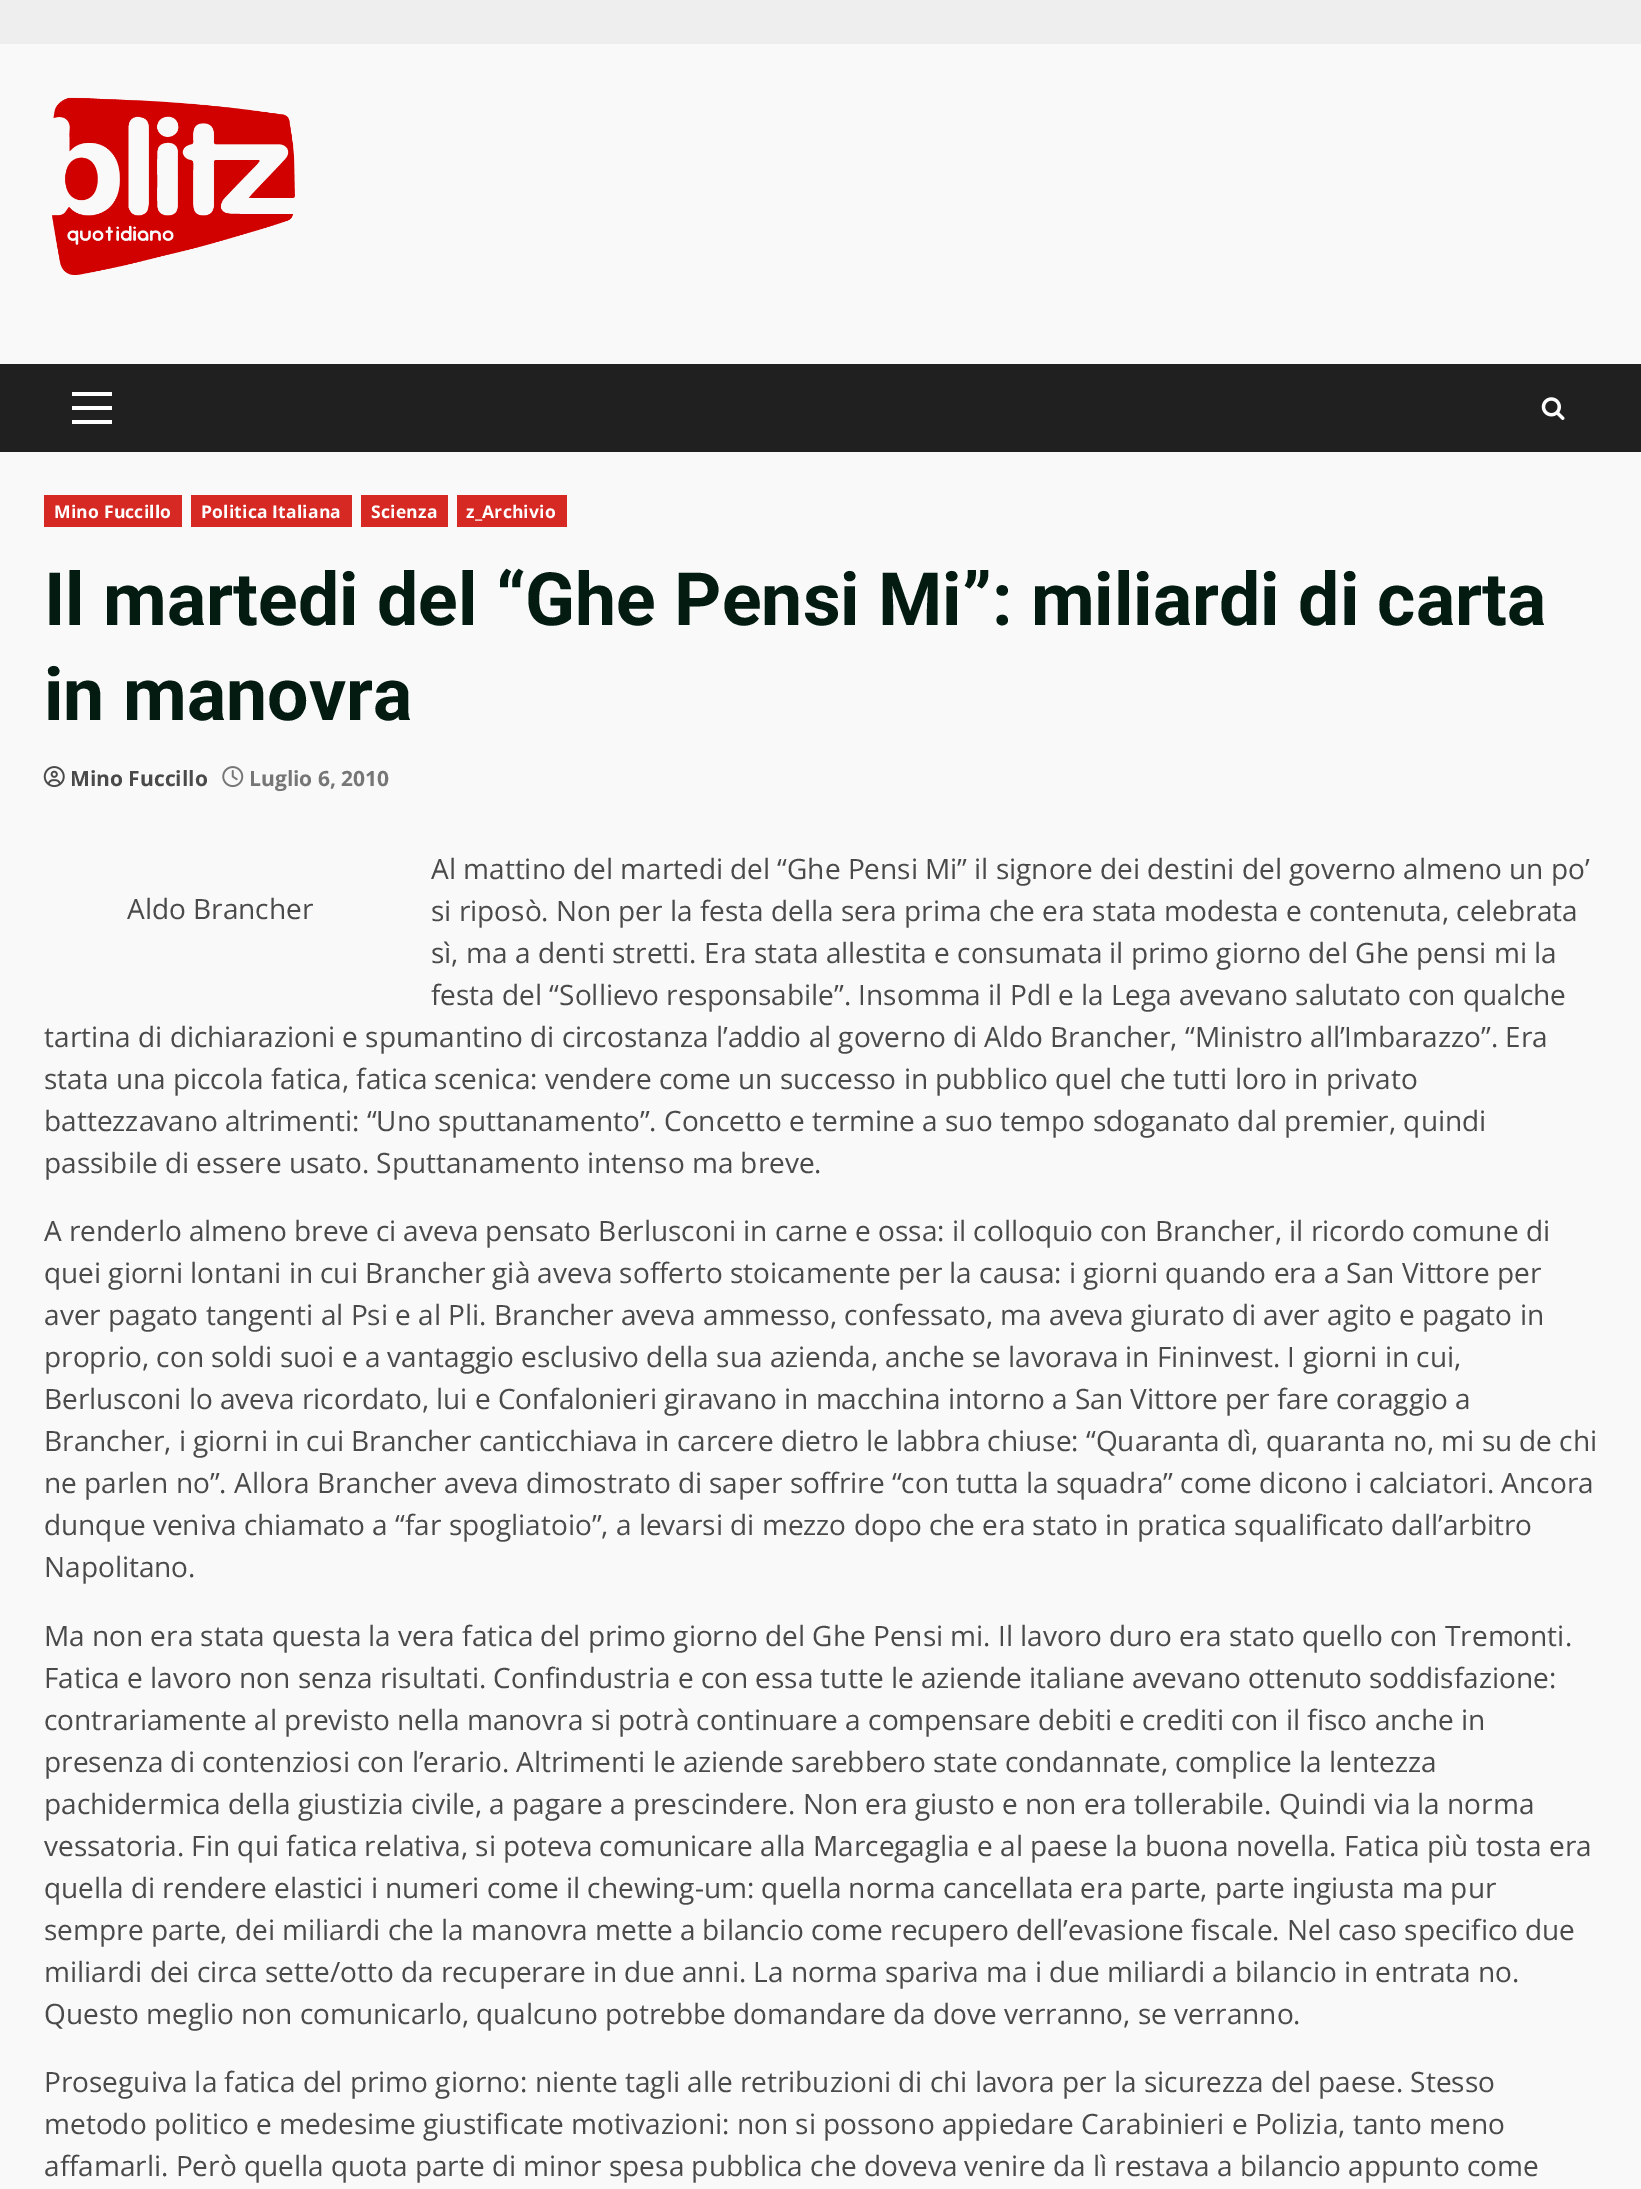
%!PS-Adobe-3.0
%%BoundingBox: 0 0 1641 2189
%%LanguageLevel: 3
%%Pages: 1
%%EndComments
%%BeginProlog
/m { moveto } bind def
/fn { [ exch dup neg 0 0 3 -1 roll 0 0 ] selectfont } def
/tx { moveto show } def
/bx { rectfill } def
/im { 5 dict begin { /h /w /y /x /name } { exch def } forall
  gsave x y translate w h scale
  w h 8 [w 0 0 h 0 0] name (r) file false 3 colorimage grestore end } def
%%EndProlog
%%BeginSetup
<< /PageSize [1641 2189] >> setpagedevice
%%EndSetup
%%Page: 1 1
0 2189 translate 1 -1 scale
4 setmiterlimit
0.933 setgray
0 0 1641 2189 bx
0.976 setgray
0 44 1641 2145 bx
(image0.raw) 52 97 243 178 im
0.125 setgray
0 364 1641 88 bx
1 setgray
72 406 40 4 bx
72 392 40 4 bx
72 420 40 4 bx
(image1.raw) 1541 397 24 23 im
0.843 0.161 0.141 setrgbcolor
44 495 138 32 bx
/OpenSans-Bold 17.5 fn
1 setgray
54 518 m 0.2 0 (Mino Fuccillo) ashow
0.843 0.161 0.141 setrgbcolor
191 495 161 32 bx
1 setgray
201 518 m 0.2 0 (Politica Italiana) ashow
0.843 0.161 0.141 setrgbcolor
361 495 87 32 bx
1 setgray
371 518 m 0.2 0 (Scienza) ashow
0.843 0.161 0.141 setrgbcolor
457 495 110 32 bx
1 setgray
466 518 m 0.2 0 (z_Archivio) ashow
/Roboto-Bold 73.5 fn
0.012 0.106 0.067 setrgbcolor
(Il martedi del “Ghe Pensi Mi”: miliardi di carta) 44 625 tx
(in manovra) 44 720 tx
(image2.raw) 43 766 22 22 im
/OpenSans-Bold 21 fn
0.29 setgray
(Mino Fuccillo) 70 786 tx
(image3.raw) 222 766 22 22 im
0.463 setgray
(Luglio 6, 2010) 249 786 tx
/OpenSans-Regular 28 fn
0.29 setgray
(Al mattino del martedi del “Ghe Pensi Mi” il signore dei destini del governo almeno un po’) 431 879 tx
(si riposò. Non per la festa della sera prima che era stata modesta e contenuta, celebrata) 431 921 tx
(sì, ma a denti stretti. Era stata allestita e consumata il primo giorno del Ghe pensi mi la) 431 963 tx
(festa del “Sollievo responsabile”. Insomma il Pdl e la Lega avevano salutato con qualche) 431 1005 tx
(tartina di dichiarazioni e spumantino di circostanza l’addio al governo di Aldo Brancher, “Ministro all’Imbarazzo”. Era) 44 1047 tx
(stata una piccola fatica, fatica scenica: vendere come un successo in pubblico quel che tutti loro in privato) 44 1089 tx
(battezzavano altrimenti: “Uno sputtanamento”. Concetto e termine a suo tempo sdoganato dal premier, quindi) 44 1131 tx
(passibile di essere usato. Sputtanamento intenso ma breve.) 44 1173 tx
(Aldo Brancher) 127 919 tx
(A renderlo almeno breve ci aveva pensato Berlusconi in carne e ossa: il colloquio con Brancher, il ricordo comune di) 44 1241 tx
(quei giorni lontani in cui Brancher già aveva sofferto stoicamente per la causa: i giorni quando era a San Vittore per) 44 1283 tx
(aver pagato tangenti al Psi e al Pli. Brancher aveva ammesso, confessato, ma aveva giurato di aver agito e pagato in) 44 1325 tx
(proprio, con soldi suoi e a vantaggio esclusivo della sua azienda, anche se lavorava in Fininvest. I giorni in cui,) 44 1367 tx
(Berlusconi lo aveva ricordato, lui e Confalonieri giravano in macchina intorno a San Vittore per fare coraggio a) 44 1409 tx
(Brancher, i giorni in cui Brancher canticchiava in carcere dietro le labbra chiuse: “Quaranta dì, quaranta no, mi su de chi) 44 1451 tx
(ne parlen no”. Allora Brancher aveva dimostrato di saper soffrire “con tutta la squadra” come dicono i calciatori. Ancora) 44 1493 tx
(dunque veniva chiamato a “far spogliatoio”, a levarsi di mezzo dopo che era stato in pratica squalificato dall’arbitro) 44 1535 tx
(Napolitano.) 44 1577 tx
(Ma non era stata questa la vera fatica del primo giorno del Ghe Pensi mi. Il lavoro duro era stato quello con Tremonti.) 44 1646 tx
(Fatica e lavoro non senza risultati. Confindustria e con essa tutte le aziende italiane avevano ottenuto soddisfazione:) 44 1688 tx
(contrariamente al previsto nella manovra si potrà continuare a compensare debiti e crediti con il fisco anche in) 44 1730 tx
(presenza di contenziosi con l’erario. Altrimenti le aziende sarebbero state condannate, complice la lentezza) 44 1772 tx
(pachidermica della giustizia civile, a pagare a prescindere. Non era giusto e non era tollerabile. Quindi via la norma) 44 1814 tx
(vessatoria. Fin qui fatica relativa, si poteva comunicare alla Marcegaglia e al paese la buona novella. Fatica più tosta era) 44 1856 tx
(quella di rendere elastici i numeri come il chewing-um: quella norma cancellata era parte, parte ingiusta ma pur) 44 1898 tx
(sempre parte, dei miliardi che la manovra mette a bilancio come recupero dell’evasione fiscale. Nel caso specifico due) 44 1940 tx
(miliardi dei circa sette/otto da recuperare in due anni. La norma spariva ma i due miliardi a bilancio in entrata no.) 44 1982 tx
(Questo meglio non comunicarlo, qualcuno potrebbe domandare da dove verranno, se verranno.) 44 2024 tx
(Proseguiva la fatica del primo giorno: niente tagli alle retribuzioni di chi lavora per la sicurezza del paese. Stesso) 44 2092 tx
(metodo politico e medesime giustificate motivazioni: non si possono appiedare Carabinieri e Polizia, tanto meno) 44 2134 tx
(affamarli. Però quella quota parte di minor spesa pubblica che doveva venire da lì restava a bilancio appunto come) 44 2176 tx
showpage
%%EOF
